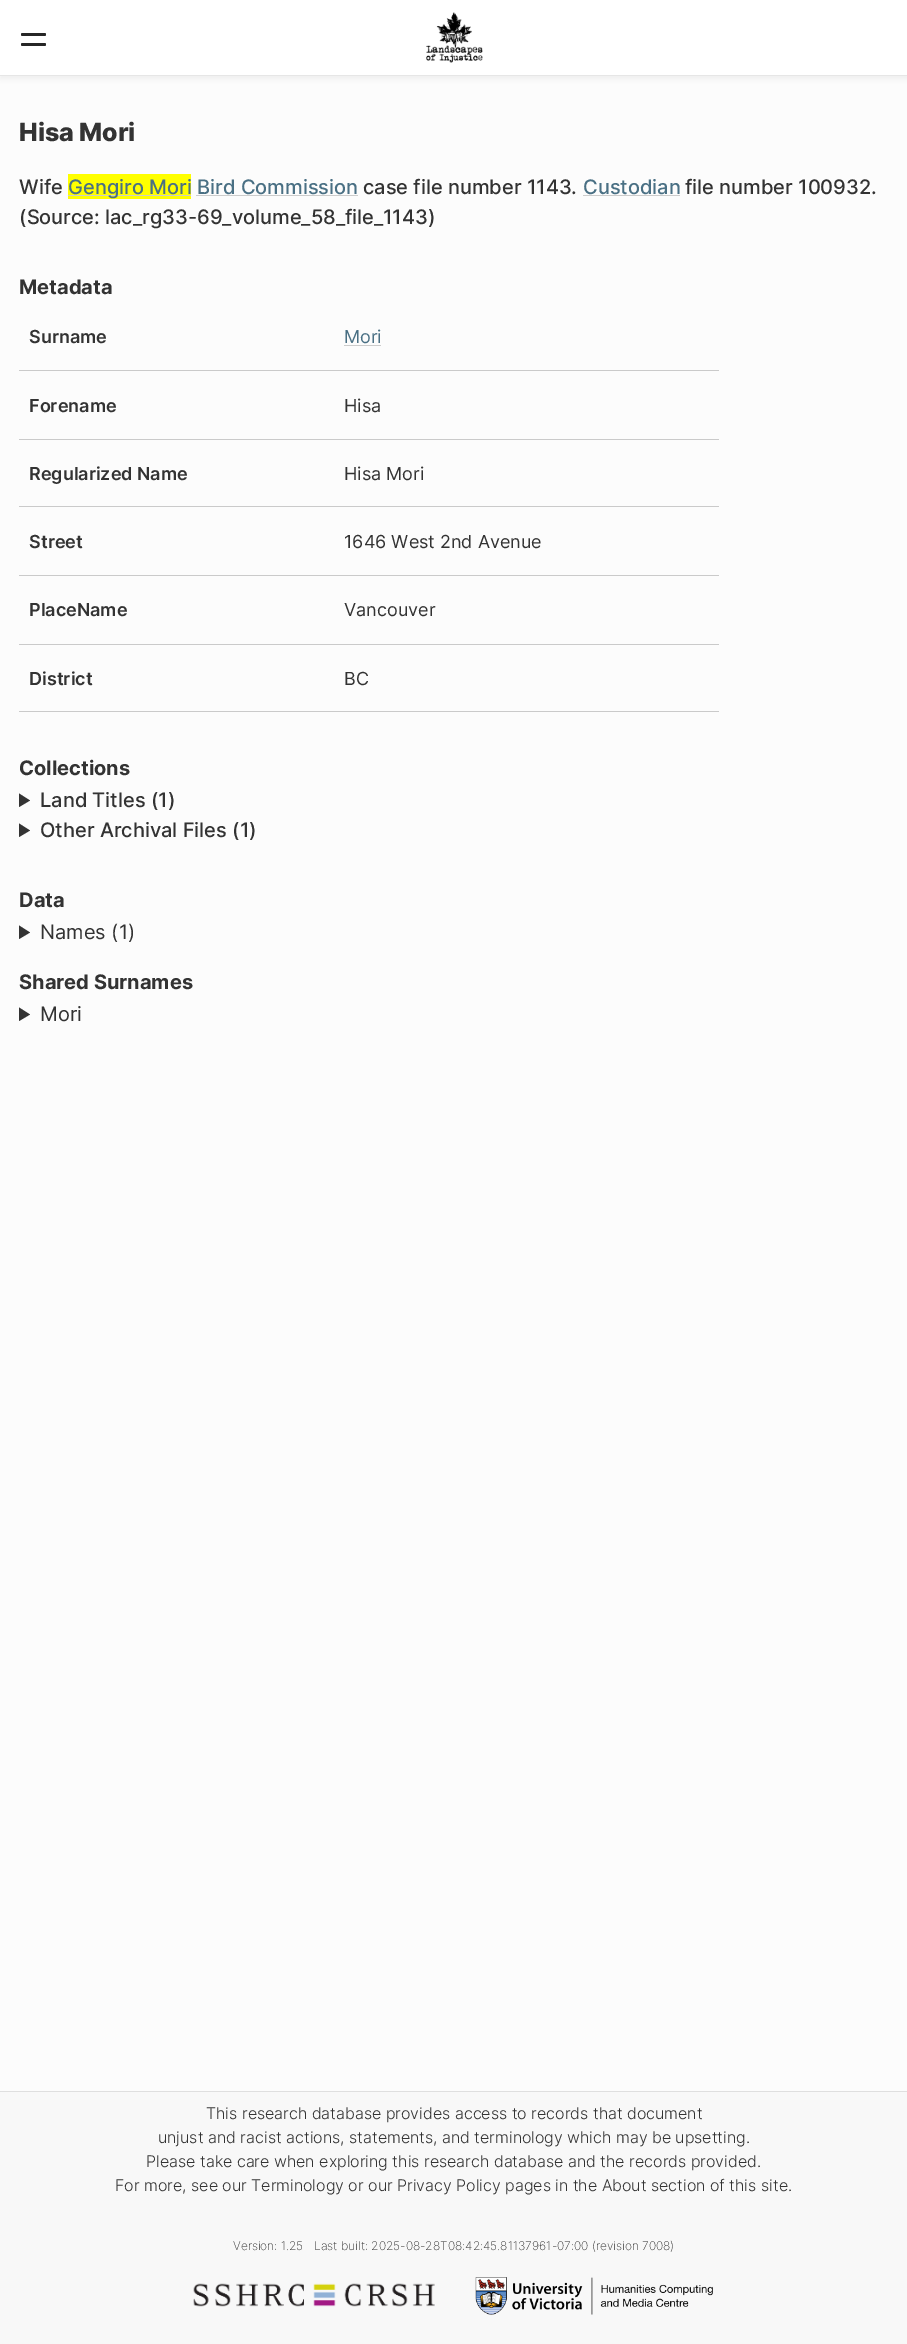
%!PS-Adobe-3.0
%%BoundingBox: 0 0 907 2344
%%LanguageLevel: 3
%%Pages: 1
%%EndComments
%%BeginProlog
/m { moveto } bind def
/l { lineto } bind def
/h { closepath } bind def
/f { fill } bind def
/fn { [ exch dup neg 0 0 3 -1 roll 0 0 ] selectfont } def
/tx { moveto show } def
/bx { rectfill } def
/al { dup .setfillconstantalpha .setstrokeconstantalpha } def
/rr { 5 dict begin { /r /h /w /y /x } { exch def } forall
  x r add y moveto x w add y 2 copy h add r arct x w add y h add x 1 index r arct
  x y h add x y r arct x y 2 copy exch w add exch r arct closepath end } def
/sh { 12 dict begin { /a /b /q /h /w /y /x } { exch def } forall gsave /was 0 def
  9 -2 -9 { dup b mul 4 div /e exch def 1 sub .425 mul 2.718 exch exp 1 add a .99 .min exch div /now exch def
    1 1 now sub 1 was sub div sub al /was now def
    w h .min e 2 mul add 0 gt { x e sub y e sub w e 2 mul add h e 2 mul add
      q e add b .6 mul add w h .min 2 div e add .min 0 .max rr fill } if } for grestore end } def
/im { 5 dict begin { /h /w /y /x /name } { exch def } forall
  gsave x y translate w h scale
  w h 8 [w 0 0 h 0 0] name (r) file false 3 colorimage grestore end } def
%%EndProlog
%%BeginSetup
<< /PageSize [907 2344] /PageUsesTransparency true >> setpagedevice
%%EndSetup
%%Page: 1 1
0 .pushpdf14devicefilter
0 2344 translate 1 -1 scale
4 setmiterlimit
0.988 setgray
0 0 907 2344 bx
0 setgray
0 3 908 76 0 3 0.05 sh
1 setgray
0 0 907 75 bx
0.902 setgray
0 75 907 1 bx
0.149 setgray
21 33 25 3 1.5 rr f
21 43 25 3 1.5 rr f
(image0.raw) 426 12 57 51 im
/Inter-ExtraBold 25 fn
0.2 setgray
(Hisa Mori) 19 141 tx
/Inter-Medium 20 fn
(Wife) 19 194 tx
1 1 0 setrgbcolor
68 174 123 25 bx
0.8 setgray
68 195 123 1 bx
0.29 0.439 0.518 setrgbcolor
(Gengiro Mori Bird Commission) 68 194 tx
0.2 setgray
(case file number 1143.) 363 194 tx
0.29 0.439 0.518 setrgbcolor
(Custodian) 583 194 tx
0.8 setgray
583 195 97 1 bx
0.2 setgray
(file number 100932.) 685 194 tx
0.8 setgray
196 195 162 1 bx
0.2 setgray
(\(Source: lac_rg33-69_volume_58_file_1143\)) 19 224 tx
/Inter-Bold 20 fn
(Metadata) 19 294 tx
/Inter-SemiBold 18 fn
(Surname) 29 343 tx
0.792 setgray
19 370 700 1 bx
/Inter-Regular 18 fn
0.29 0.439 0.518 setrgbcolor
(Mori) 344 343 tx
0.8 setgray
344 345 37 1 bx
/Inter-SemiBold 18 fn
0.2 setgray
(Forename) 29 412 tx
0.792 setgray
19 439 700 1 bx
/Inter-Regular 18 fn
0.2 setgray
(Hisa) 344 412 tx
/Inter-SemiBold 18 fn
(Regularized Name) 29 480 tx
0.792 setgray
19 506 700 1 bx
/Inter-Regular 18 fn
0.2 setgray
(Hisa Mori) 344 480 tx
/Inter-SemiBold 18 fn
(Street) 29 548 tx
0.792 setgray
19 575 700 1 bx
/Inter-Regular 18 fn
0.2 setgray
(1646 West 2nd Avenue) 344 548 tx
/Inter-SemiBold 18 fn
(PlaceName) 29 616 tx
0.792 setgray
19 644 700 1 bx
/Inter-Regular 18 fn
0.2 setgray
(Vancouver) 344 616 tx
/Inter-SemiBold 18 fn
(District) 29 685 tx
0.792 setgray
19 711 700 1 bx
/Inter-Regular 18 fn
0.2 setgray
(BC) 344 685 tx
/Inter-Bold 20 fn
(Collections) 19 775 tx
19 793.5 m 30 800.5 l 19 807 l h f
/Inter-Medium 20 fn
(Land Titles \(1\)) 40 807 tx
19 823.5 m 30 830.5 l 19 837 l h f
(Other Archival Files \(1\)) 40 837 tx
/Inter-Bold 20 fn
(Data) 19 907 tx
19 925.5 m 30 932.5 l 19 939 l h f
/Inter-Regular 20 fn
(Names \(1\)) 40 939 tx
/Inter-Bold 20 fn
(Shared Surnames) 19 989 tx
19 1007.5 m 30 1014.5 l 19 1021 l h f
/Inter-Regular 20 fn
(Mori) 40 1021 tx
0.973 setgray
0 2092 907 252 bx
0.875 setgray
0 2091 907 1 bx
/Inter-Light 16 fn
0.2 setgray
(This research database provides access to records that document) 206 2119 tx
(unjust and racist actions, statements, and terminology which may be upsetting.) 158 2143 tx
(Please take care when exploring this research database and the records provided.) 146 2167 tx
(For more, see our Terminology or our Privacy Policy pages in the About section of this site.) 115 2191 tx
/Inter-ExtraLight 12 fn
(Version: 1.25) 233 2250 tx
(Last built: 2025-08-28T08:42:45.81137961-07:00 \(revision 7008\)) 314 2250 tx
(image1.raw) 193 2283 242 24 im
(image2.raw) 475 2277 238 38 im
.poppdf14devicefilter showpage
%%EOF
